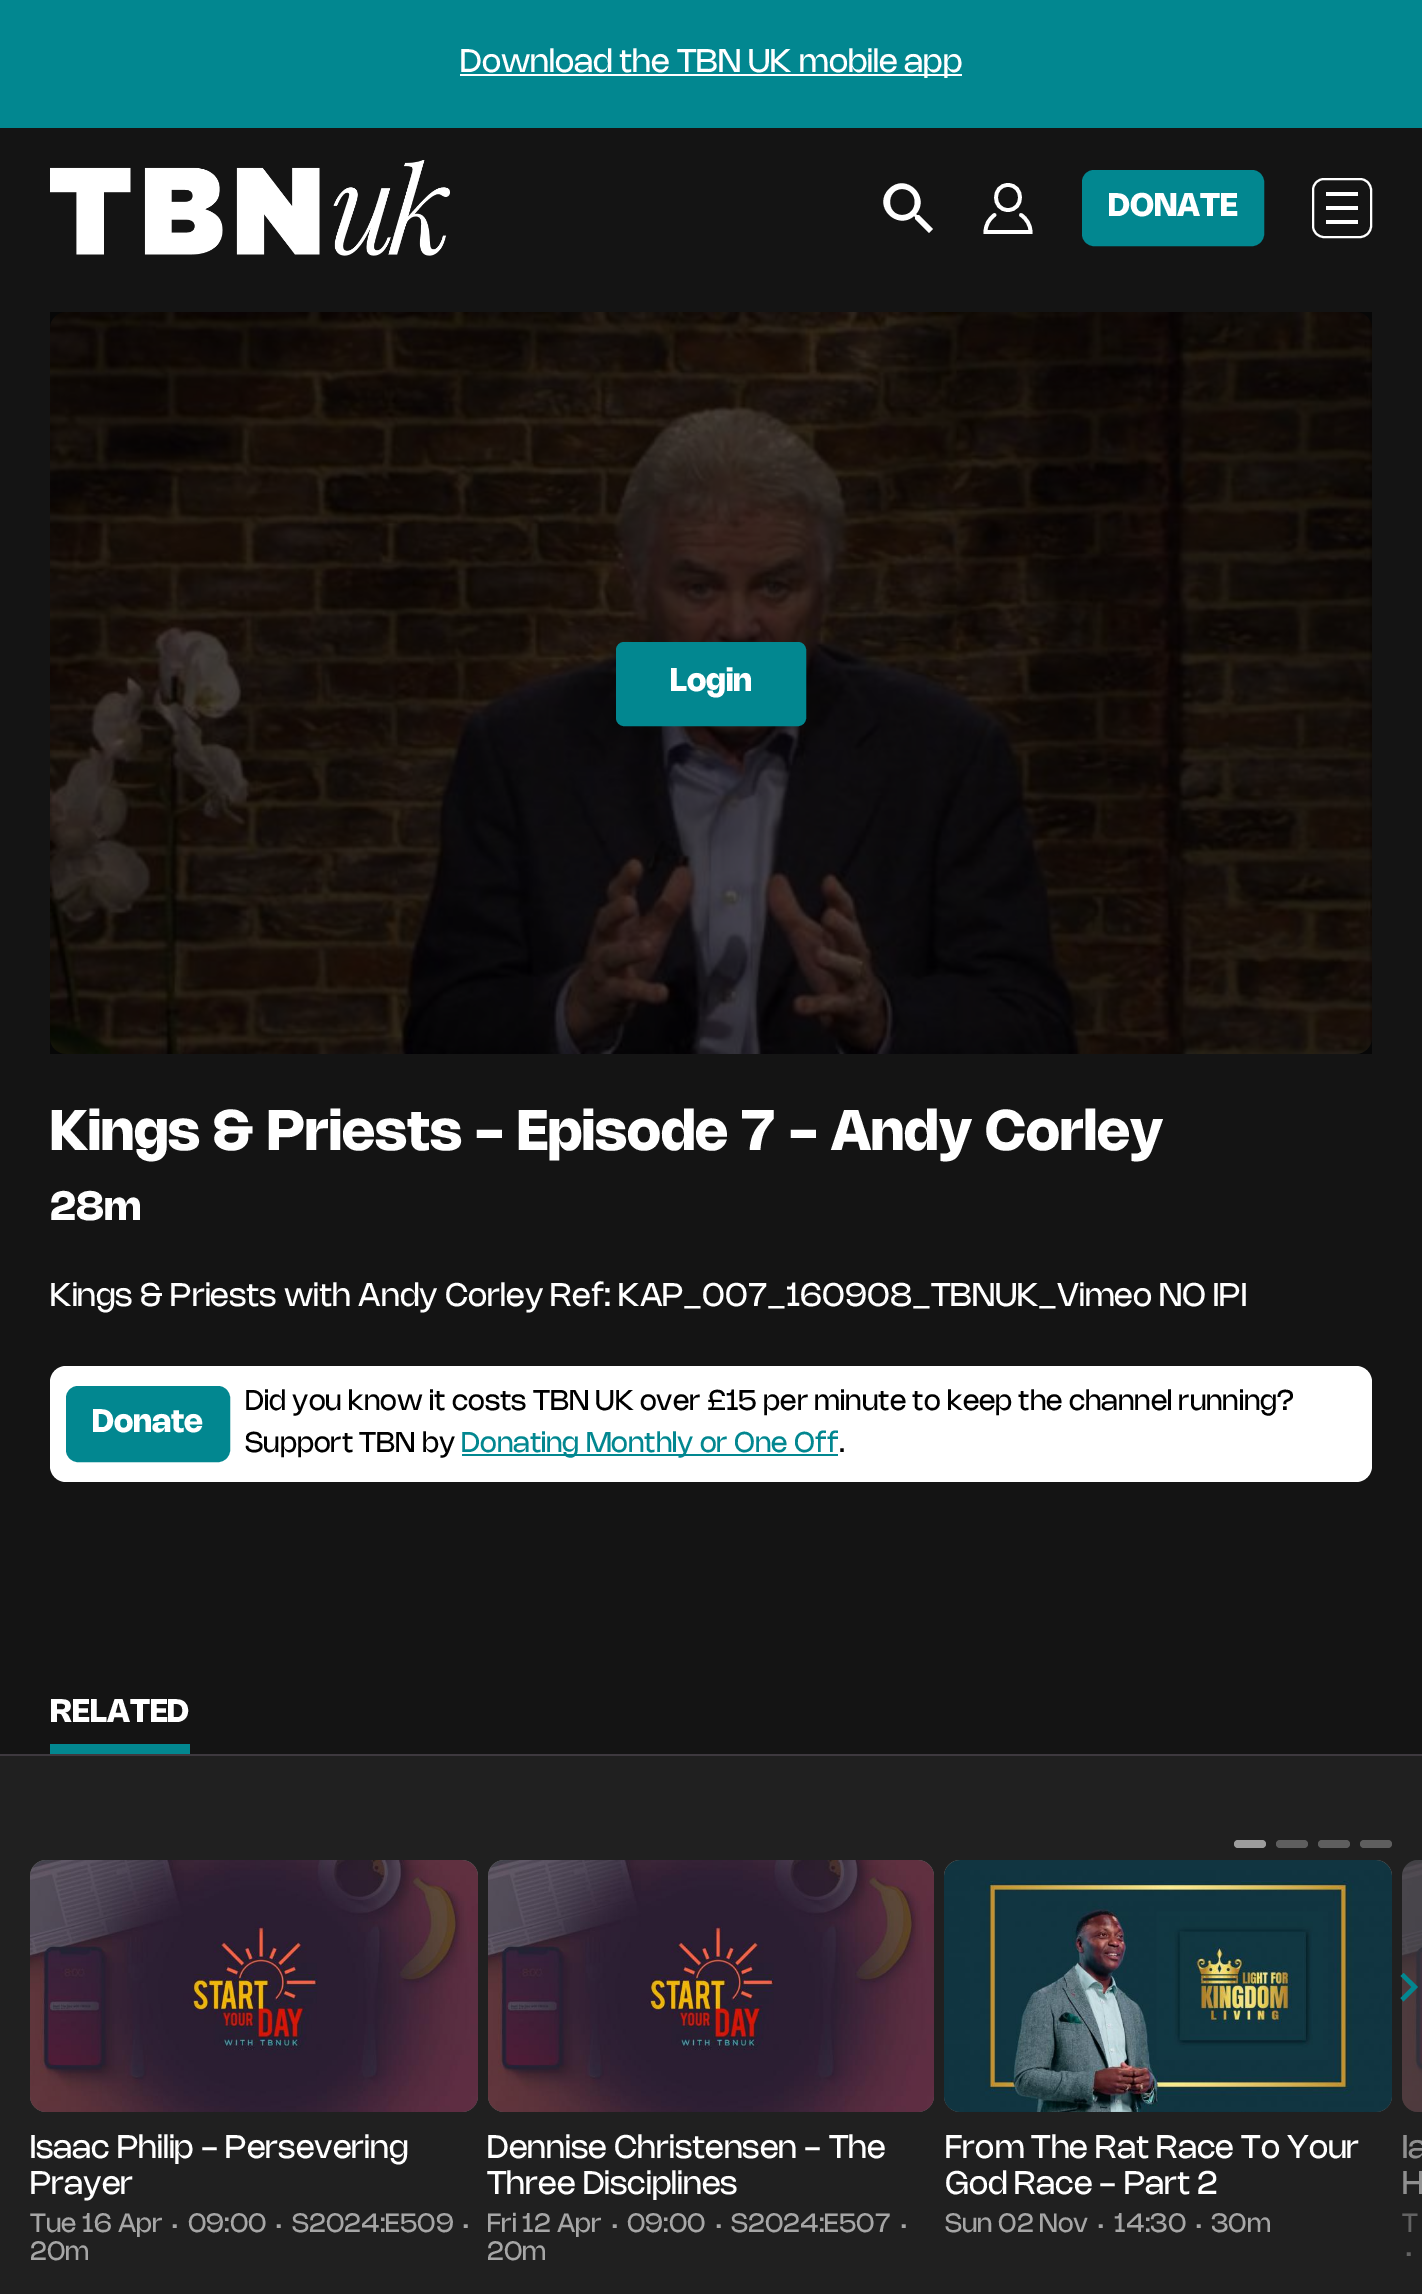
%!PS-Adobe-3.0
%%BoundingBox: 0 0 1422 2294
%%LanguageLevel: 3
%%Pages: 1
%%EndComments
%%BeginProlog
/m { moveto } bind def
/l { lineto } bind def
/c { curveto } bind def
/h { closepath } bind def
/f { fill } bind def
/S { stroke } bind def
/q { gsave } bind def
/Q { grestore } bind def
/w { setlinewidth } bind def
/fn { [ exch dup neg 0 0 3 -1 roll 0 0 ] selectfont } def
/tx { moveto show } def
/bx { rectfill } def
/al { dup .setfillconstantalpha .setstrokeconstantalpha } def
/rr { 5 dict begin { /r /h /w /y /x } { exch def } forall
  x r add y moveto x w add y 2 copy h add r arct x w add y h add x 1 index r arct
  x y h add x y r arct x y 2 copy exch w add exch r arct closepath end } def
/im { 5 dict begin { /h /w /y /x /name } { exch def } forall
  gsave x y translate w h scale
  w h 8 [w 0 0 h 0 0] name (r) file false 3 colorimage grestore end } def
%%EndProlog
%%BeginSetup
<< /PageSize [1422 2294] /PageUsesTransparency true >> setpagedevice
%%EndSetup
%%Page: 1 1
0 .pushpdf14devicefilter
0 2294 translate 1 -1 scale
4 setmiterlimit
0.078 setgray
0 0 1422 2294 bx
0.027 setgray
50 312 1322 742 bx
0.008 0.529 0.565 setrgbcolor
0 0 1422 128 bx
1 setgray
460 74 502 2 bx
/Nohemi-Regular 32 fn
(Download the TBN UK mobile app) 460 72 tx
(image0.raw) 50 160 400 96 im
919 215 m 917 215 l 916 214 l 931 197 906 172 889 189 c 872 206 897 231 914 216 c 915 217 l 915 219 l 929 233 l 933 229 l h 902 215 m 886 215 886 189 902 189 c 919 189 919 215 902 215 c h f
3.7 w
1 setlinecap
994.5 215 m 989 219 985.5 225 985.5 232 c 1030.5 232 l 1030.5 225 1026.5 218.5 1021 215 c 1008 185 m 992 185 992 210 1008 210 c 1024 210 1024 185 1008 185 c h S
0.008 0.529 0.565 setrgbcolor
1083 171 180 74 11 rr q f Q
2 w
0 setlinecap
S
/Nohemi-Bold 32 fn
1 setgray
(DONATE) 1108 216 tx
1313 179 58 58 11 rr S
1326 192 32 4 bx
1326 206 32 4 bx
1326 220 32 4 bx
(image1.raw) 50 312 1322 742 im
0.008 0.529 0.565 setrgbcolor
617 643 188 82 7 rr q f Q
S
1 setgray
(Login) 670 691 tx
/Nohemi-Bold 56 fn
(Kings & Priests - Episode 7 - Andy Corley) 50 1150 tx
/Nohemi-Bold 40 fn
(28m) 50 1220 tx
/Nohemi-Regular 32 fn
(Kings & Priests with Andy Corley Ref: KAP_007_160908_TBNUK_Vimeo NO IPI) 50 1306 tx
50 1366 1322 116 16 rr f
0.008 0.529 0.565 setrgbcolor
67 1387 162 74 11 rr q f Q
S
/Nohemi-Bold 32 fn
1 setgray
(Donate) 92 1432 tx
/Nohemi-Regular 28 fn
0 setgray
(Did you know it costs TBN UK over £15 per minute to keep the channel running?) 245 1410 tx
(Support TBN by) 245 1452 tx
0.008 0.529 0.565 setrgbcolor
462 1454 376 2 bx
(Donating Monthly or One Off) 461 1452 tx
0 setgray
(.) 839 1452 tx
0.243 0.224 0.247 setrgbcolor
0 1754 1422 2 bx
0.008 0.529 0.565 setrgbcolor
50 1744 140 10 bx
/Nohemi-Bold 32 fn
1 setgray
(RELATED) 50 1722 tx
0.125 setgray
0 1756 1422 538 bx
0.616 setgray
1234 1840 32 8 4 rr f
0.369 setgray
1276 1840 32 8 4 rr f
1318 1840 32 8 4 rr f
1360 1840 32 8 4 rr f
0.216 setgray
1418 1860 m 1422 1860 l 1422 2112 l 1418 2112 l 1409 2112 1402 2105 1402 2096 c 1402 1876 l 1402 1867 1409 1860 1418 1860 c h f
0.67 al
0.263 setgray
1418 1860 m 1422 1860 l 1422 2112 l 1418 2112 l 1409 2112 1402 2105 1402 2096 c 1402 1876 l 1402 1867 1409 1860 1418 1860 c h f
1 al
(image5.raw) 1402 1860 20 252 im
0.008 0.529 0.565 setrgbcolor
1403.5 1973 m 1400.5 1976 l 1411.5 1987 l 1400.5 1998 l 1403.5 2001.5 l 1418 1987 l h f
0.31 setgray
30 1860 448 252 16 rr f
0.67 al
0.4 setgray
30 1860 448 252 16 rr f
1 al
(image2.raw) 30 1860 448 252 im
/Nohemi-Regular 32 fn
1 setgray
(Isaac Philip - Persevering) 30 2158 tx
(Prayer) 30 2194 tx
/Nohemi-Regular 26 fn
0.651 setgray
(Tue 16 Apr) 30 2232 tx
/Nohemi-Regular 20 fn
(•) 172 2232 tx
/Nohemi-Regular 26 fn
(09:00) 188 2232 tx
/Nohemi-Regular 20 fn
(•) 276 2232 tx
/Nohemi-Regular 26 fn
(S2024:E509) 292 2232 tx
/Nohemi-Regular 20 fn
(•) 463 2232 tx
/Nohemi-Regular 26 fn
(20m) 30 2260 tx
0.31 setgray
488 1860 446 252 16 rr f
0.67 al
0.4 setgray
488 1860 446 252 16 rr f
1 al
(image3.raw) 488 1860 446 252 im
/Nohemi-Regular 32 fn
1 setgray
(Dennise Christensen - The) 487 2158 tx
(Three Disciplines) 487 2194 tx
/Nohemi-Regular 26 fn
0.651 setgray
(Fri 12 Apr) 487 2232 tx
/Nohemi-Regular 20 fn
(•) 612 2232 tx
/Nohemi-Regular 26 fn
(09:00) 627 2232 tx
/Nohemi-Regular 20 fn
(•) 716 2232 tx
/Nohemi-Regular 26 fn
(S2024:E507) 731 2232 tx
/Nohemi-Regular 20 fn
(•) 901 2232 tx
/Nohemi-Regular 26 fn
(20m) 487 2260 tx
0.31 setgray
944 1860 448 252 16 rr f
0.67 al
0.4 setgray
944 1860 448 252 16 rr f
1 al
(image4.raw) 944 1860 448 252 im
/Nohemi-Regular 32 fn
1 setgray
(From The Rat Race To Your) 945 2158 tx
(God Race - Part 2) 945 2194 tx
/Nohemi-Regular 26 fn
0.651 setgray
(Sun 02 Nov) 945 2232 tx
/Nohemi-Regular 20 fn
(•) 1098 2232 tx
/Nohemi-Regular 26 fn
(14:30) 1114 2232 tx
/Nohemi-Regular 20 fn
(•) 1196 2232 tx
/Nohemi-Regular 26 fn
(30m) 1211 2232 tx
/Nohemi-Regular 32 fn
0.565 setgray
(Ia) 1402 2158 tx
(H) 1402 2194 tx
/Nohemi-Regular 26 fn
0.388 setgray
(T) 1402 2232 tx
/Nohemi-Regular 20 fn
(•) 1406 2260 tx
.poppdf14devicefilter showpage
%%EOF
